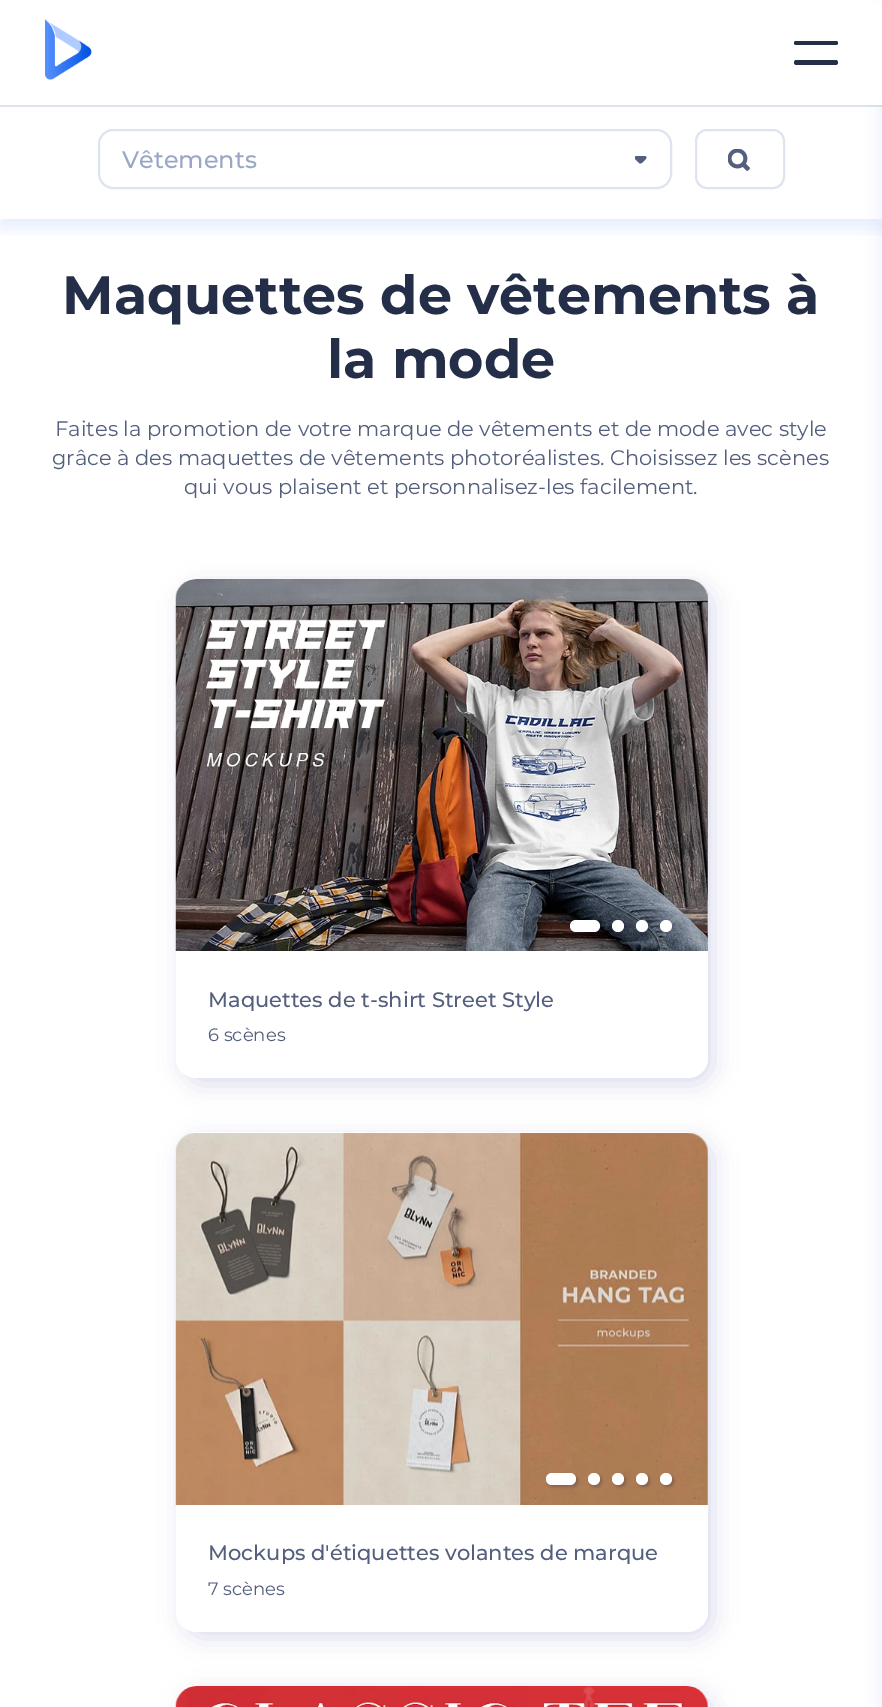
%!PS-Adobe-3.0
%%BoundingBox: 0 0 882 1707
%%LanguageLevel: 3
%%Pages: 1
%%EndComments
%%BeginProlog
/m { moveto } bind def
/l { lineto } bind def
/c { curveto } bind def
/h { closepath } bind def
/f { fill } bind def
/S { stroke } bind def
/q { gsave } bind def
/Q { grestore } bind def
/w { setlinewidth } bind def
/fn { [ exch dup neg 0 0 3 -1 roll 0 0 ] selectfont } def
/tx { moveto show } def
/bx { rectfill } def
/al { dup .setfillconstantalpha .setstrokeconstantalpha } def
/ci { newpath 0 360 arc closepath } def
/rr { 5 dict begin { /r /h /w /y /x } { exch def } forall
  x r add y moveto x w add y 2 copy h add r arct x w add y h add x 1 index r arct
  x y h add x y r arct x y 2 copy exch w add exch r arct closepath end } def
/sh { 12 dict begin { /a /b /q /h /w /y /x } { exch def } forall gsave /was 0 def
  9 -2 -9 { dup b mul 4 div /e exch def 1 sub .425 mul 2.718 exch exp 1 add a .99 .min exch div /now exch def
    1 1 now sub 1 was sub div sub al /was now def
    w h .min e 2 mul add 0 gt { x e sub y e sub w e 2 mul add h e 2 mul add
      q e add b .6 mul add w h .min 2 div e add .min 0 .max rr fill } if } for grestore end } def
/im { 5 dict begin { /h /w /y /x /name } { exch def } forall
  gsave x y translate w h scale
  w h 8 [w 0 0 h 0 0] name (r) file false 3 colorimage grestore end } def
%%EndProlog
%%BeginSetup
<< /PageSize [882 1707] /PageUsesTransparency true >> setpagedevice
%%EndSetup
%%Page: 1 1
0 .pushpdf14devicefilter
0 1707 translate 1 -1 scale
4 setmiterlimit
1 setgray
0 0 882 1707 bx
q
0 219 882 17 rectclip
0 0.322 0.878 setrgbcolor
0 114 882 114 0 9 0.1 sh
Q
0.867 0.89 0.941 setrgbcolor
0 105 882 2 bx
0 0.322 0.878 setrgbcolor
882 9 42 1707 15 9 0.1 sh
1 setgray
4 5 878 100 bx
(image0.raw) 45 19 47 61 im
0.145 0.18 0.282 setrgbcolor
794 41 44 4 2 rr f
794 60 44 5 2.5 rr f
0.867 0.89 0.941 setrgbcolor
2 w
99 130 572 58 14 rr S
/Montserrat-Medium 24 fn
0.604 0.651 0.784 setrgbcolor
(Vêtements) 122 168 tx
q
635 156 12 8 rectclip
0.329 0.373 0.494 setrgbcolor
635 159 m 638.5 162.5 l 641 164.5 641.5 163 644 161 c 644.5 160 647.5 158 646 156.5 c 645 155.5 637 156 636 156 c 634.5 156.5 634.5 158 635 159 c h f
Q
(image1.raw) 728 149 22 22 im
0.867 0.89 0.941 setrgbcolor
696 130 88 58 11 rr S
/Montserrat-Bold 54 fn
0.145 0.18 0.282 setrgbcolor
(Maquettes de vêtements à) 62 314 tx
(la mode) 327 378 tx
/Montserrat-Regular 21 fn
0.329 0.373 0.494 setrgbcolor
(Faites la promotion de votre marque de vêtements et de mode avec style) 55 436 tx
(grâce à des maquettes de vêtements photoréalistes. Choisissez les scènes) 52 465 tx
(qui vous plaisent et personnalisez-les facilement.) 184 494 tx
0.584 0.565 0.796 setrgbcolor
182 585 532 500 20 12 0.32 sh
1 setgray
197 579 m 687 579 l 698 579 708 588 708 599 c 708 1059 l 708 1070 698 1078 687 1078 c 197 1078 l 185 1078 176 1070 176 1059 c 176 599 l 176 588 185 579 197 579 c h f
(image2.raw) 175 579 533 372 im
(image3.raw) 707 592 1 359 im
0.157 0.043 0.267 setrgbcolor
572 921 30 12 6 1.5 0.25 sh
1 setgray
570 920 30 12 6 rr f
0.157 0.043 0.267 setrgbcolor
614 921 12 12 6 1.5 0.25 sh
1 setgray
618 926 6 ci f
0.157 0.043 0.267 setrgbcolor
638 921 12 12 6 1.5 0.25 sh
1 setgray
642 926 6 ci f
0.157 0.043 0.267 setrgbcolor
662 921 12 12 6 1.5 0.25 sh
1 setgray
666 926 6 ci f
/Montserrat-Medium 21 fn
0.329 0.373 0.494 setrgbcolor
(Maquettes de t-shirt Street Style) 208 1007 tx
/Montserrat-Regular 18 fn
(6 scènes) 208 1041 tx
0.584 0.565 0.796 setrgbcolor
182 1139 532 499 20 12 0.32 sh
1 setgray
197 1132 m 687 1132 l 698 1132 708 1141 708 1152 c 708 1612 l 708 1623 698 1632 687 1632 c 197 1632 l 185 1632 176 1623 176 1612 c 176 1152 l 176 1141 185 1132 197 1132 c h f
(image4.raw) 175 1133 533 372 im
(image5.raw) 707 1146 1 359 im
0.157 0.043 0.267 setrgbcolor
548 1475 30 12 6 1.5 0.25 sh
1 setgray
546 1473 30 12 6 rr f
0.157 0.043 0.267 setrgbcolor
590 1475 12 12 6 1.5 0.25 sh
1 setgray
594 1479 6 ci f
0.157 0.043 0.267 setrgbcolor
614 1475 12 12 6 1.5 0.25 sh
1 setgray
618 1479 6 ci f
0.157 0.043 0.267 setrgbcolor
638 1475 12 12 6 1.5 0.25 sh
1 setgray
642 1479 6 ci f
0.157 0.043 0.267 setrgbcolor
662 1475 12 12 6 1.5 0.25 sh
1 setgray
666 1479 6 ci f
/Montserrat-Medium 21 fn
0.329 0.373 0.494 setrgbcolor
(Mockups d'étiquettes volantes de marque) 208 1560 tx
/Montserrat-Regular 18 fn
(7 scènes) 208 1595 tx
0.584 0.565 0.796 setrgbcolor
182 1692 532 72 21 12 0.32 sh
1 setgray
176 1686 532 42 21 rr f
(image6.raw) 175 1686 533 21 im
.poppdf14devicefilter showpage
%%EOF
